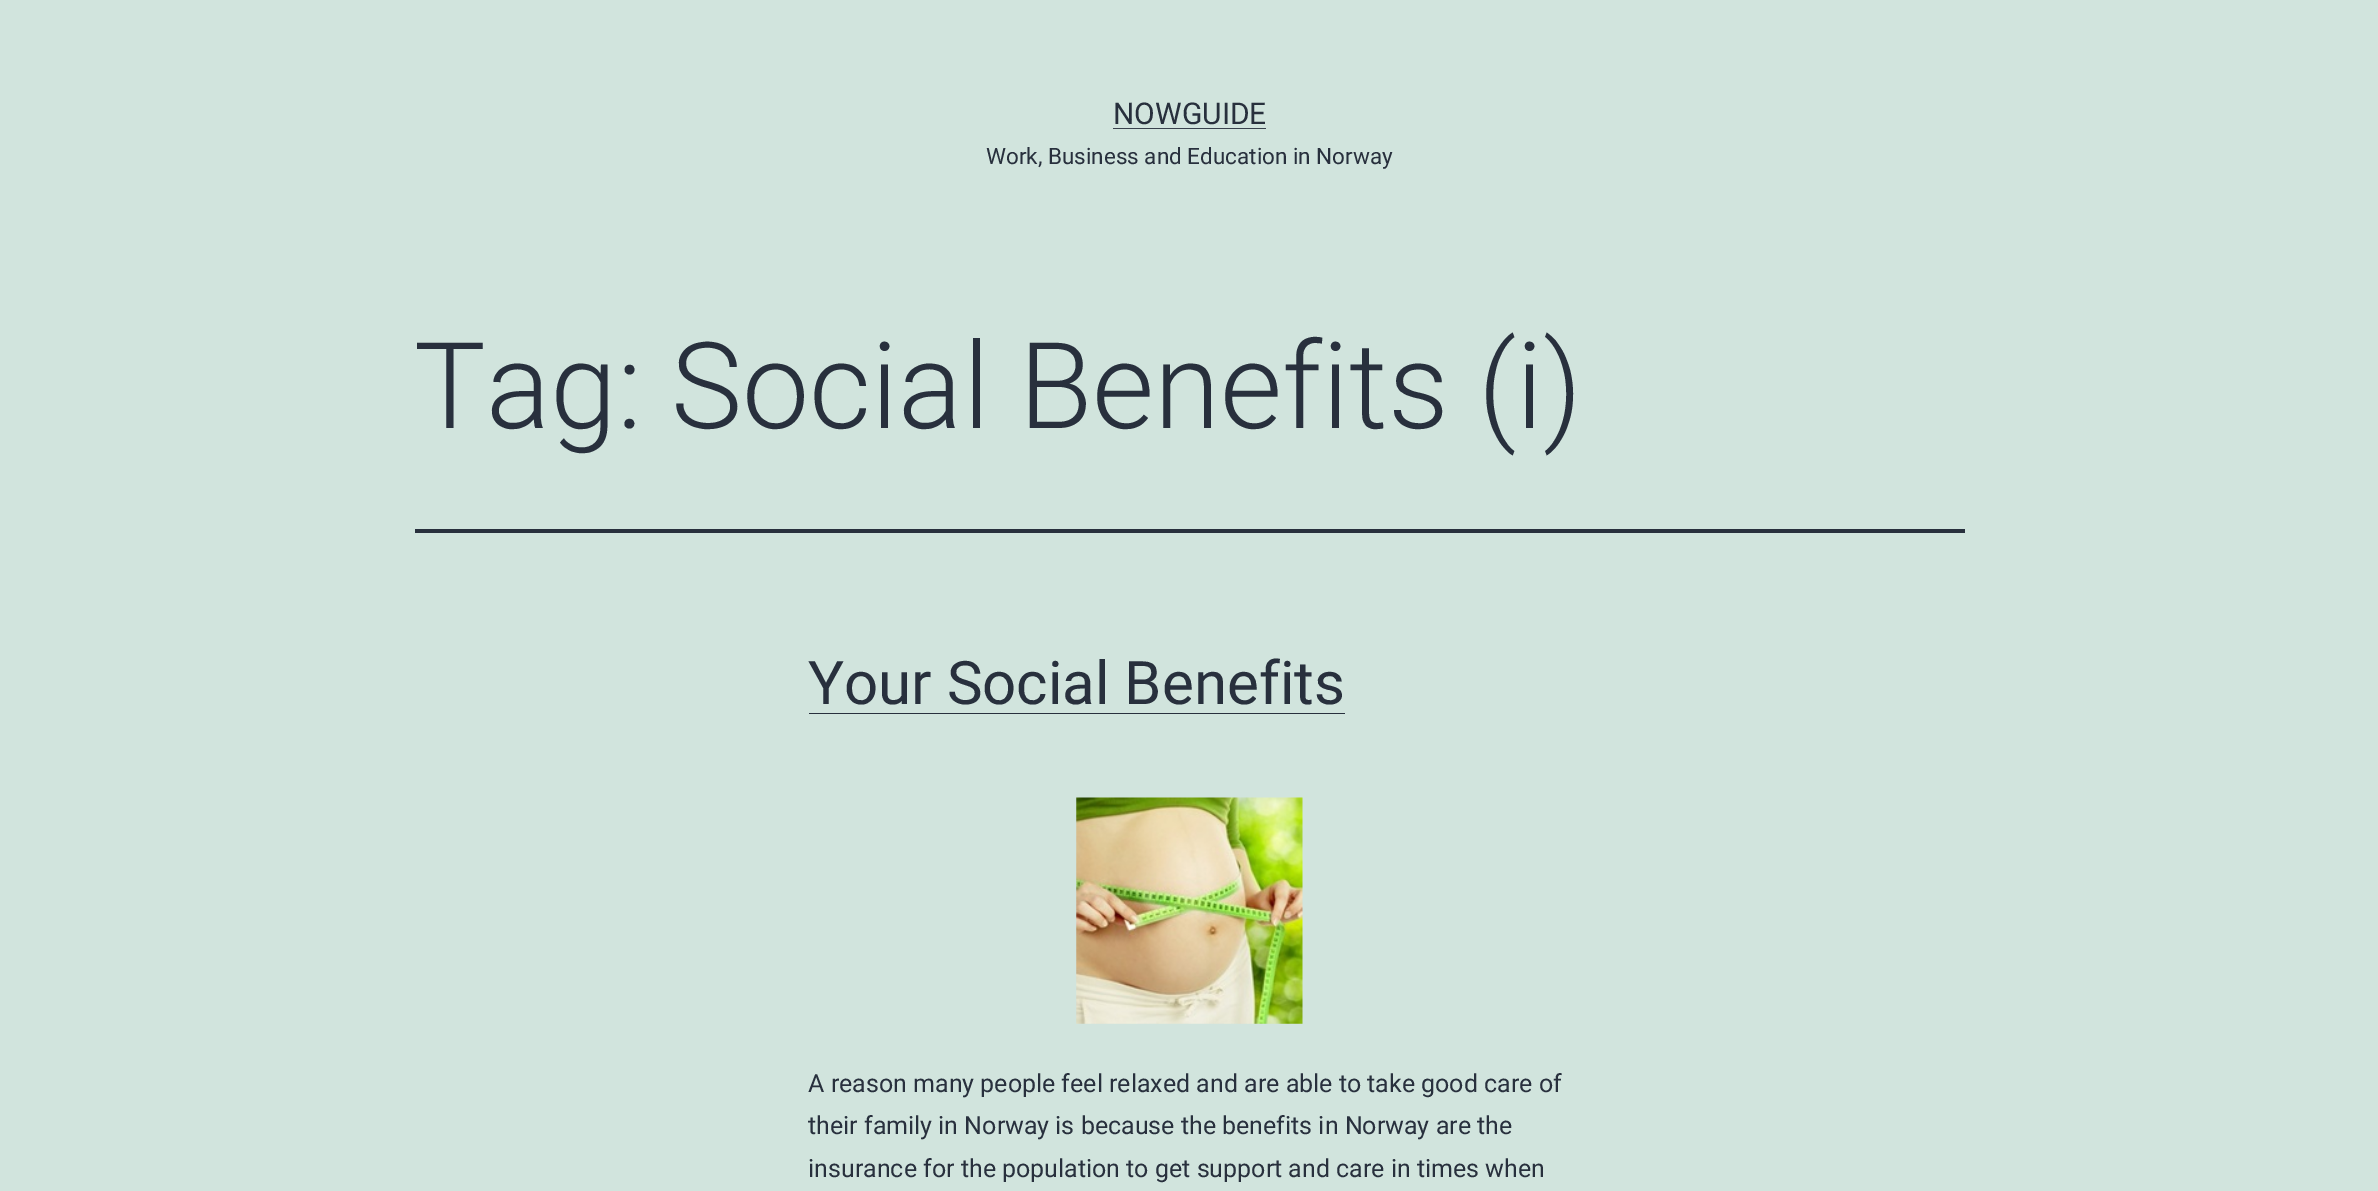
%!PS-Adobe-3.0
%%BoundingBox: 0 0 2378 1191
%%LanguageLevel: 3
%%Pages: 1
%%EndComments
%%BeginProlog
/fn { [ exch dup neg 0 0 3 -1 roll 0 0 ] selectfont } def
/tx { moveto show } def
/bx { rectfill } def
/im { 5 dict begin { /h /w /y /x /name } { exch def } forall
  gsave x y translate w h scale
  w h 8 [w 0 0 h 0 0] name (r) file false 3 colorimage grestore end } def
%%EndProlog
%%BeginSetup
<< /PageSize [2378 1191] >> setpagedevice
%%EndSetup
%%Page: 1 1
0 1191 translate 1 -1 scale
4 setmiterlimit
0.82 0.894 0.867 setrgbcolor
0 0 2378 1191 bx
/Roboto-Regular 30 fn
0.157 0.188 0.239 setrgbcolor
(NOWGUIDE) 1113 124 tx
0.224 0.255 0.302 setrgbcolor
1113 128 153 1 bx
/Roboto-Regular 22.5 fn
0.157 0.188 0.239 setrgbcolor
(Work, Business and Education in Norway) 986 164 tx
415 529 1550 4 bx
/Roboto-Light 120 fn
(Tag: Social Benefits \(i\)) 414 428 tx
/Roboto-Regular 60 fn
(Your Social Benefits) 808 704 tx
809 713 536 1 bx
(image0.raw) 1076 797 227 227 im
/Roboto-Regular 25 fn
(A reason many people feel relaxed and are able to take good care of) 808 1092 tx
(their family in Norway is because the benefits in Norway are the) 808 1134 tx
(insurance for the population to get support and care in times when) 808 1177 tx
showpage
%%EOF
